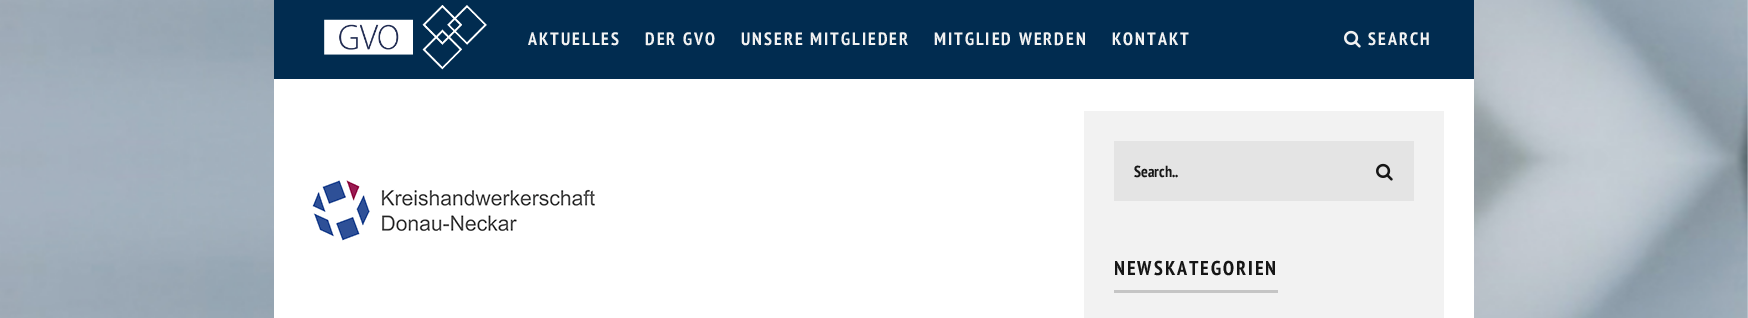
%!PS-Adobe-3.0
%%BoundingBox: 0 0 1748 318
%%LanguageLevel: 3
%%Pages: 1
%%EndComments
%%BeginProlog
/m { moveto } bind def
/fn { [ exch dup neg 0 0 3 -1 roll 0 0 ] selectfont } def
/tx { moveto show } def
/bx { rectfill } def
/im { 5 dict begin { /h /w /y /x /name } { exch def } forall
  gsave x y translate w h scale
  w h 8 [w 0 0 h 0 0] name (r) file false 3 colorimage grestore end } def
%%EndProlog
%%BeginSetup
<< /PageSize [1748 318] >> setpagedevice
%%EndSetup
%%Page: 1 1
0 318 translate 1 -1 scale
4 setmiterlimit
1 setgray
0 0 1748 318 bx
(image0.raw) 1747 0 1 318 im
(image1.raw) 0 0 1748 318 im
0.004 0.173 0.314 setrgbcolor
274 0 1200 79 bx
(image2.raw) 324 5 163 65 im
/PTSansNarrow-Bold 18 fn
0.949 setgray
528 45 m 2 0 (AKTUELLES) ashow
645 45 m 2 0 (DER GVO) ashow
741 45 m 2 0 (UNSERE MITGLIEDER) ashow
934 45 m 2 0 (MITGLIED WERDEN) ashow
1112 45 m 2 0 (KONTAKT) ashow
(image3.raw) 1344 30 17 18 im
1368 45 m 2 0 (SEARCH) ashow
1 setgray
274 79 1200 239 bx
(image4.raw) 312 180 283 61 im
0.949 setgray
1084 111 360 207 bx
0.894 setgray
1114 141 300 60 bx
/PTSansNarrow-Bold 16 fn
0.086 setgray
(Search..) 1134 177 tx
(image5.raw) 1376 163 17 18 im
0.773 setgray
1114 290 164 3 bx
/PTSansNarrow-Bold 20 fn
0.086 setgray
1114 275 m 2 0 (NEWSKATEGORIEN) ashow
showpage
%%EOF
